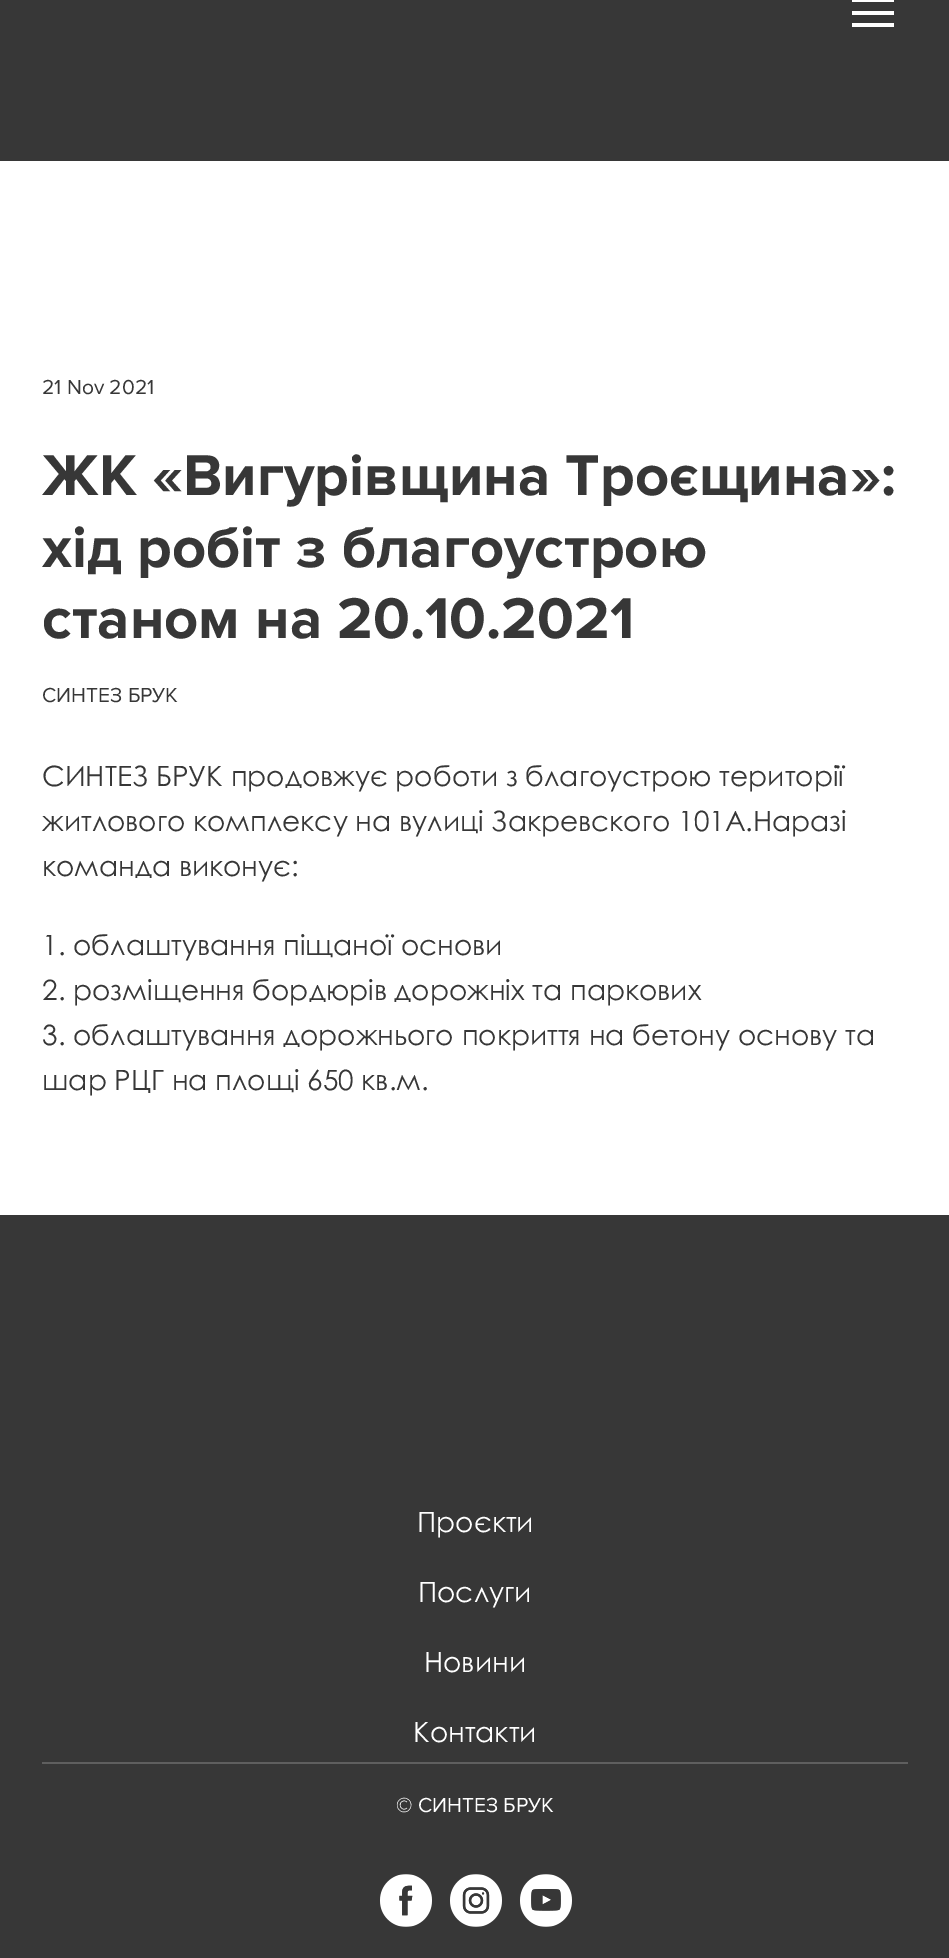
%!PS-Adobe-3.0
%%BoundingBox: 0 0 949 1958
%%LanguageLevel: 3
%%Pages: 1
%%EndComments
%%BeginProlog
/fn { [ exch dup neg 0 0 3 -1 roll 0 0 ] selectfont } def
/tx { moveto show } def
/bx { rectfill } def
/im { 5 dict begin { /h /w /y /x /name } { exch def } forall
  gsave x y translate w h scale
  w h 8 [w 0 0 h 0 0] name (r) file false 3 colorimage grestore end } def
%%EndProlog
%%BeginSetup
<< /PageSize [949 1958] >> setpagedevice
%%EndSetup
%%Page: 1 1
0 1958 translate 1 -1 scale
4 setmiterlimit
1 setgray
0 0 949 1958 bx
0.216 setgray
0 0 949 161 bx
1 setgray
852 0 42 2 bx
852 11 42 4 bx
852 23 42 4 bx
/ProximaNova-Regular 21 fn
0.216 setgray
(21 Nov 2021) 42 394 tx
/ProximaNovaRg-Bold 59.5 fn
(ЖК «Вигурівщина Троєщина»:) 42 495 tx
(хід робіт з благоустрою) 42 567 tx
(станом на 20.10.2021) 42 638 tx
/ProximaNova-Regular 21 fn
(СИНТЕЗ БРУК) 42 702 tx
/CenturyGothic-Regular 28 fn
(СИНТЕЗ БРУК продовжує роботи з благоустрою території) 42 786 tx
(житлового комплексу на вулиці Закревского 101А.Наразі) 42 831 tx
(команда виконує:) 42 876 tx
(1. облаштування піщаної основи) 42 955 tx
(2. розміщення бордюрів дорожніх та паркових) 42 1000 tx
(3. облаштування дорожнього покриття на бетону основу та) 42 1045 tx
(шар РЦГ на площі 650 кв.м.) 42 1090 tx
0 1215 949 743 bx
1 setgray
(Проєкти) 417 1532 tx
(Послуги) 418 1602 tx
(Новини) 424 1672 tx
(Контакти) 413 1742 tx
0.373 setgray
42 1762 866 2 bx
/ProximaNova-Regular 21 fn
1 setgray
(© СИНТЕЗ БРУК) 396 1812 tx
(image0.raw) 380 1874 52 53 im
(image1.raw) 450 1874 52 53 im
(image2.raw) 520 1874 52 53 im
showpage
%%EOF
